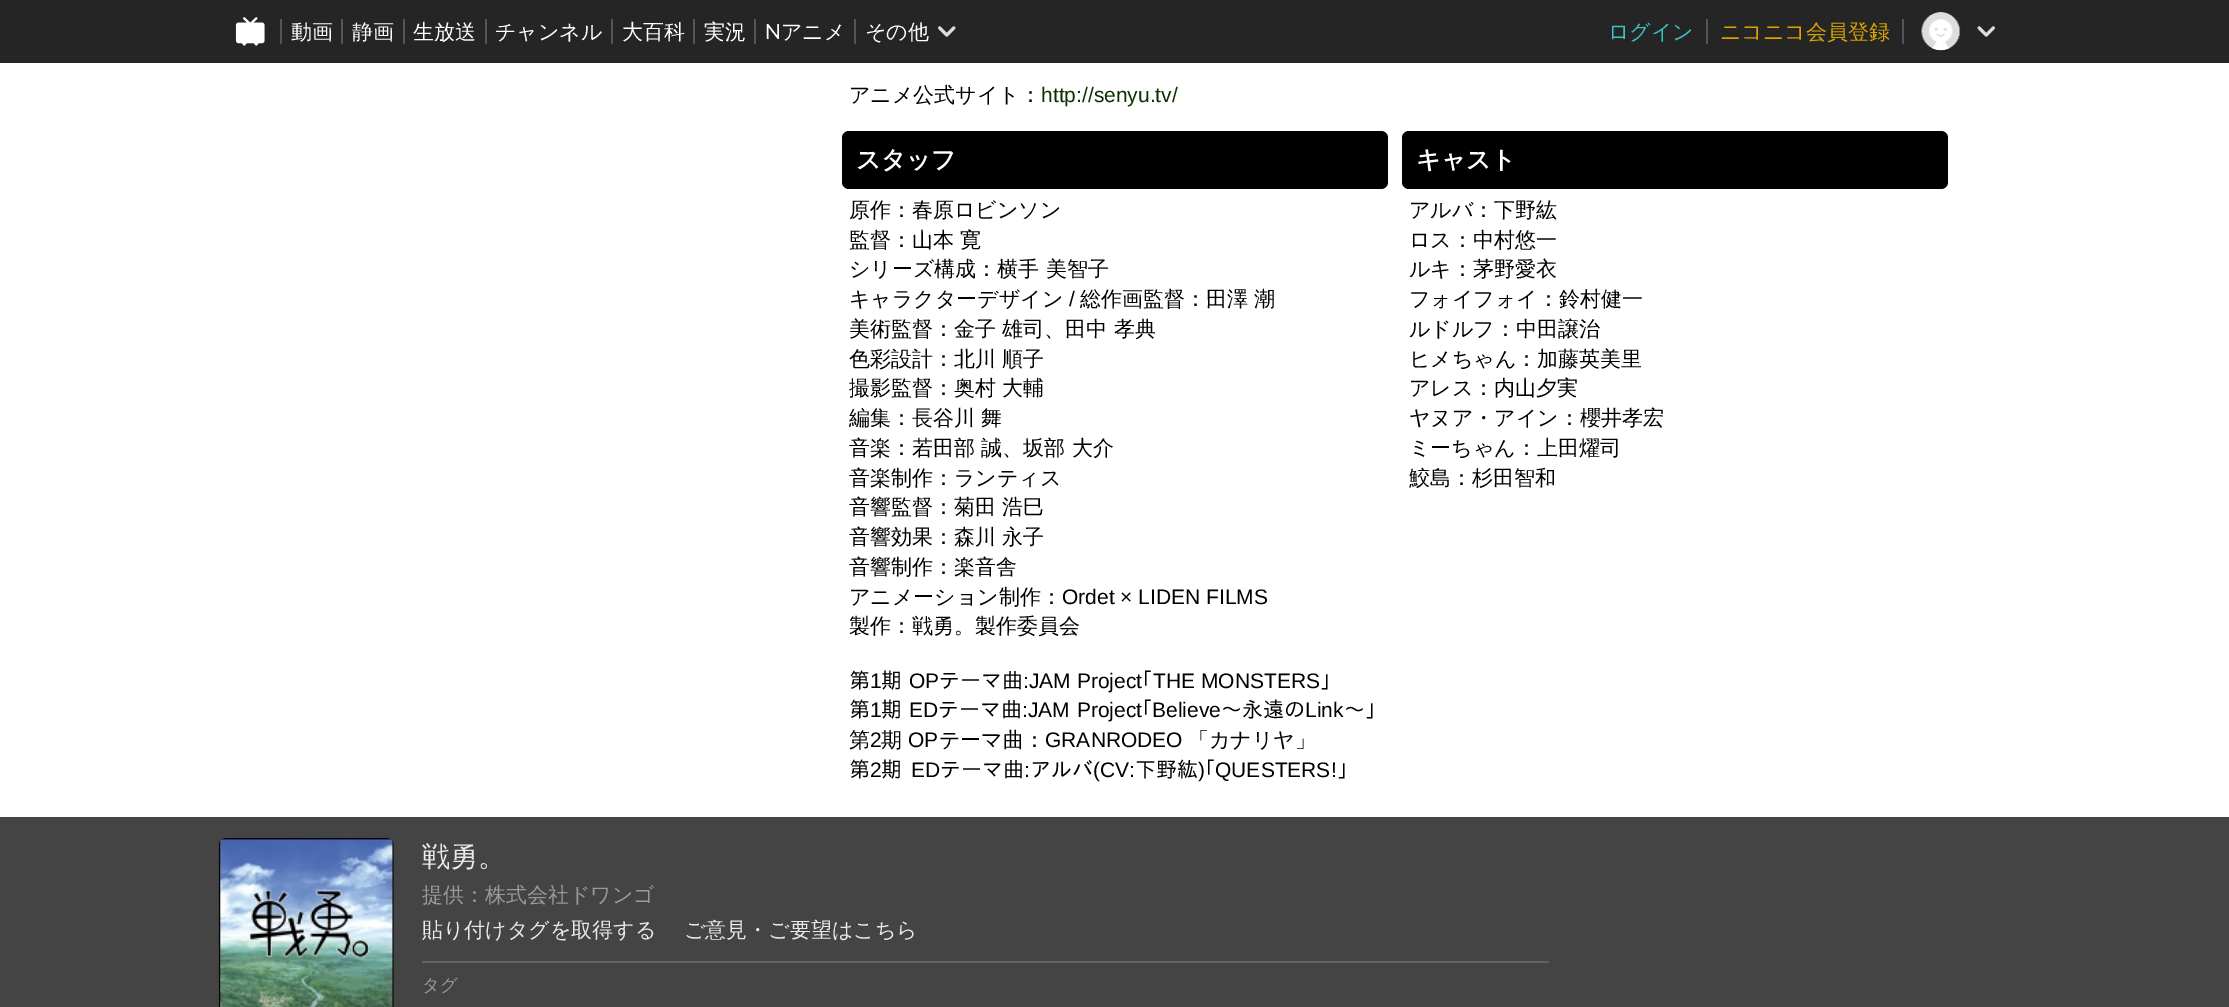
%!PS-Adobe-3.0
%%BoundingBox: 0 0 2229 1007
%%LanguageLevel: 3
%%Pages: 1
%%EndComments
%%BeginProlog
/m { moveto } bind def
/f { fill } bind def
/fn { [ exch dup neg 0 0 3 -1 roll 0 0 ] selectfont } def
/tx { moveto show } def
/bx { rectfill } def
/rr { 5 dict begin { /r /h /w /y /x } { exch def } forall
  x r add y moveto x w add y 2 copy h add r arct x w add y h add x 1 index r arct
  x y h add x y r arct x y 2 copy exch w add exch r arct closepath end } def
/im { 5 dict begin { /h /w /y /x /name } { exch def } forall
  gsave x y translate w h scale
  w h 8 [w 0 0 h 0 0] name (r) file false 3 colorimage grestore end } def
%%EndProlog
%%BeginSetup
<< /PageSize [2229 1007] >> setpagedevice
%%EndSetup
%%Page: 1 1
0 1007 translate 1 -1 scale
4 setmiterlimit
1 setgray
0 0 2229 1007 bx
0.145 setgray
0 0 2229 63 bx
(image0.raw) 235 17 30 29 im
0.333 setgray
280 19 2 25 bx
/WenQuanYiZenHei-Medium 21 fn
1 setgray
(動画) 291 39 tx
0.333 setgray
341 19 2 25 bx
1 setgray
(静画) 352 39 tx
0.333 setgray
403 19 2 25 bx
1 setgray
(生放送) 413 39 tx
0.333 setgray
485 19 2 25 bx
1 setgray
(チャンネル) 495 39 tx
0.333 setgray
611 19 2 25 bx
1 setgray
(大百科) 622 39 tx
0.333 setgray
693 19 2 25 bx
1 setgray
(実況) 704 39 tx
0.333 setgray
754 19 2 25 bx
/Lato-Regular 21 fn
1 setgray
(N) 765 39 tx
/WenQuanYiZenHei-Medium 21 fn
(アニメ) 781 39 tx
0.333 setgray
854 19 2 25 bx
1 setgray
(その他) 865 39 tx
(image1.raw) 938 26 18 11 im
0.224 0.769 0.757 setrgbcolor
(ログイン) 1608 39 tx
0.333 setgray
1706 19 2 25 bx
0.851 0.639 0 setrgbcolor
(ニコニコ会員登録) 1720 39 tx
0.333 setgray
1902 19 2 25 bx
(image2.raw) 1921 12 40 39 im
(image3.raw) 1977 26 18 11 im
0 setgray
(アニメ公式サイト：) 849 102 tx
/LiberationSans-Regular 21 fn
0.039 0.2 0 setrgbcolor
(http://senyu.tv/) 1041 102 tx
0 setgray
842 131 546 58 7 rr f
/WenQuanYiZenHei-Bold 24.5 fn
1 setgray
(スタッフ) 856 168 tx
/WenQuanYiZenHei-Medium 21 fn
0 setgray
(原作：春原ロビンソン) 849 217 tx
(監督：山本 寛) 849 247 tx
(シリーズ構成：横手 美智子) 849 276 tx
(キャラクターデザイン) 849 306 tx
/LiberationSans-Regular 21 fn
(/) 1069 306 tx
/WenQuanYiZenHei-Medium 21 fn
(総作画監督：田澤 潮) 1080 306 tx
(美術監督：金子 雄司、田中 孝典) 849 336 tx
(色彩設計：北川 順子) 849 366 tx
(撮影監督：奥村 大輔) 849 395 tx
(編集：長谷川 舞) 849 425 tx
(音楽：若田部 誠、坂部 大介) 849 455 tx
(音楽制作：ランティス) 849 485 tx
(音響監督：菊田 浩巳) 849 514 tx
(音響効果：森川 永子) 849 544 tx
(音響制作：楽音舎) 849 574 tx
(アニメーション制作：) 849 604 tx
/LiberationSans-Regular 21 fn
(Ordet × LIDEN FILMS) 1062 604 tx
/WenQuanYiZenHei-Medium 21 fn
(製作：戦勇。製作委員会) 849 633 tx
/IPAGothic-Regular 21 fn
(第) 849 688 tx
/LiberationSans-Regular 21 fn
(1) 870 688 tx
/IPAGothic-Regular 21 fn
(期) 881 688 tx
/LiberationSans-Regular 21 fn
(OP) 909 688 tx
/IPAGothic-Regular 21 fn
(テーマ曲) 939 688 tx
/LiberationSans-Regular 21 fn
(:JAM Project) 1023 688 tx
/IPAGothic-Regular 21 fn
(｢) 1142 688 tx
/LiberationSans-Regular 21 fn
(THE MONSTERS) 1153 688 tx
/IPAGothic-Regular 21 fn
(｣) 1320 688 tx
(第) 849 717 tx
/LiberationSans-Regular 21 fn
(1) 870 717 tx
/IPAGothic-Regular 21 fn
(期) 881 717 tx
/LiberationSans-Regular 21 fn
(ED) 909 717 tx
/IPAGothic-Regular 21 fn
(テーマ曲) 938 717 tx
/LiberationSans-Regular 21 fn
1022 717 m 1 0 32 (:JAM Project) widthshow
/IPAGothic-Regular 21 fn
(｢) 1142 717 tx
/LiberationSans-Regular 21 fn
(Believe) 1152 717 tx
/IPAGothic-Regular 21 fn
(～永遠の) 1221 717 tx
/LiberationSans-Regular 21 fn
(Link) 1305 717 tx
/IPAGothic-Regular 21 fn
(～｣) 1344 717 tx
/WenQuanYiZenHei-Medium 21 fn
(第) 849 747 tx
/LiberationSans-Regular 21 fn
(2) 870 747 tx
/WenQuanYiZenHei-Medium 21 fn
(期) 881 747 tx
/LiberationSans-Regular 21 fn
(OP) 908 747 tx
/WenQuanYiZenHei-Medium 21 fn
(テーマ曲：) 939 747 tx
/LiberationSans-Regular 21 fn
(GRANRODEO) 1045 747 tx
/WenQuanYiZenHei-Medium 21 fn
(「カナリヤ」) 1188 747 tx
/IPAGothic-Regular 21 fn
(第) 849 777 tx
/LiberationSans-Regular 21 fn
(2) 870 777 tx
/IPAGothic-Regular 21 fn
(期) 881 777 tx
/LiberationSans-Regular 21 fn
(ED) 911 777 tx
/IPAGothic-Regular 21 fn
(テーマ曲) 940 777 tx
/LiberationSans-Regular 21 fn
(:) 1024 777 tx
/IPAGothic-Regular 21 fn
(アルバ) 1030 777 tx
/LiberationSans-Regular 21 fn
(\(CV:) 1093 777 tx
/IPAGothic-Regular 21 fn
(下野紘) 1135 777 tx
/LiberationSans-Regular 21 fn
(\)) 1198 777 tx
/IPAGothic-Regular 21 fn
(｢) 1205 777 tx
/LiberationSans-Regular 21 fn
(QUESTERS!) 1215 777 tx
/IPAGothic-Regular 21 fn
(｣) 1337 777 tx
1402 131 546 58 7 rr f
/WenQuanYiZenHei-Bold 24.5 fn
1 setgray
(キャスト) 1416 168 tx
/WenQuanYiZenHei-Medium 21 fn
0 setgray
(アルバ：下野紘) 1409 217 tx
(ロス：中村悠一) 1409 247 tx
(ルキ：茅野愛衣) 1409 276 tx
(フォイフォイ：鈴村健一) 1409 306 tx
(ルドルフ：中田譲治) 1409 336 tx
(ヒメちゃん：加藤英美里) 1409 366 tx
(アレス：内山夕実) 1409 395 tx
(ヤヌア・アイン：櫻井孝宏) 1409 425 tx
(ミーちゃん：上田燿司) 1409 455 tx
(鮫島：杉田智和) 1409 485 tx
0.267 setgray
0 817 2229 190 bx
(image4.raw) 218 838 176 169 im
/WenQuanYiZenHei-Medium 28 fn
0.914 setgray
(戦勇。) 422 866 tx
/WenQuanYiZenHei-Medium 21 fn
0.6 setgray
(提供：株式会社ドワンゴ) 422 902 tx
0.914 setgray
(貼り付けタグを取得する) 422 937 tx
(ご意見・ご要望はこちら) 684 937 tx
0.388 setgray
422 961 1127 2 bx
/WenQuanYiZenHei-Medium 17.5 fn
0.6 setgray
(タグ) 422 991 tx
showpage
%%EOF
